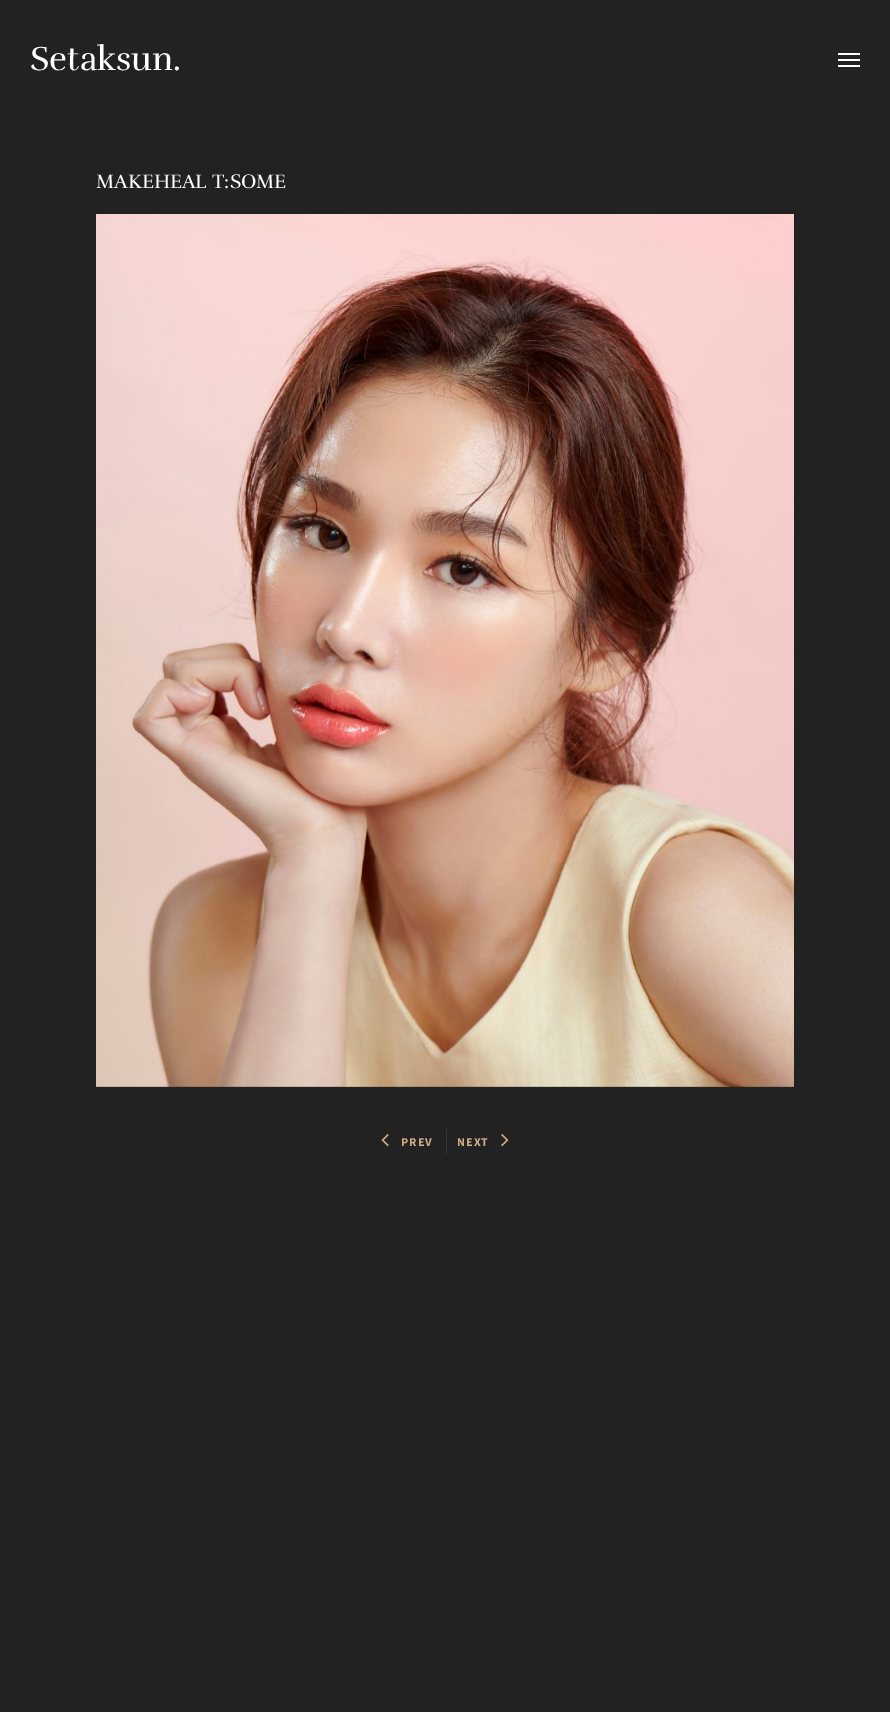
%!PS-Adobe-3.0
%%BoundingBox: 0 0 890 1712
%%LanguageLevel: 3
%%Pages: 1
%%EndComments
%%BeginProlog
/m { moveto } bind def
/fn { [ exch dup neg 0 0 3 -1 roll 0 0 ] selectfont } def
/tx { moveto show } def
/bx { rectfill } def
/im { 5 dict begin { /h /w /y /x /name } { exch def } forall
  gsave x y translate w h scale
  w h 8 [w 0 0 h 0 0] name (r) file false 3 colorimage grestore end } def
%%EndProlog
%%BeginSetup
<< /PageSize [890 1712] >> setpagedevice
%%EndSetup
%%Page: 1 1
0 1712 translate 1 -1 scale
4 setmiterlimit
0.133 setgray
0 0 890 1712 bx
/Rufina-Regular 34 fn
1 setgray
(Setaksun.) 30 70 tx
838 59 22 2 bx
838 53 22 2 bx
838 65 22 2 bx
/Rufina-Regular 20 fn
(MAKEHEAL T:SOME) 96 188 tx
(image0.raw) 96 214 698 873 im
0.212 setgray
446 1129 1 25 bx
(image1.raw) 381 1134 8 13 im
/SourceSansPro-Bold 12 fn
0.82 0.671 0.522 setrgbcolor
401 1146 m 1 0 (PREV) ashow
457 1146 m 1 0 (NEXT) ashow
(image2.raw) 501 1134 8 13 im
showpage
%%EOF
